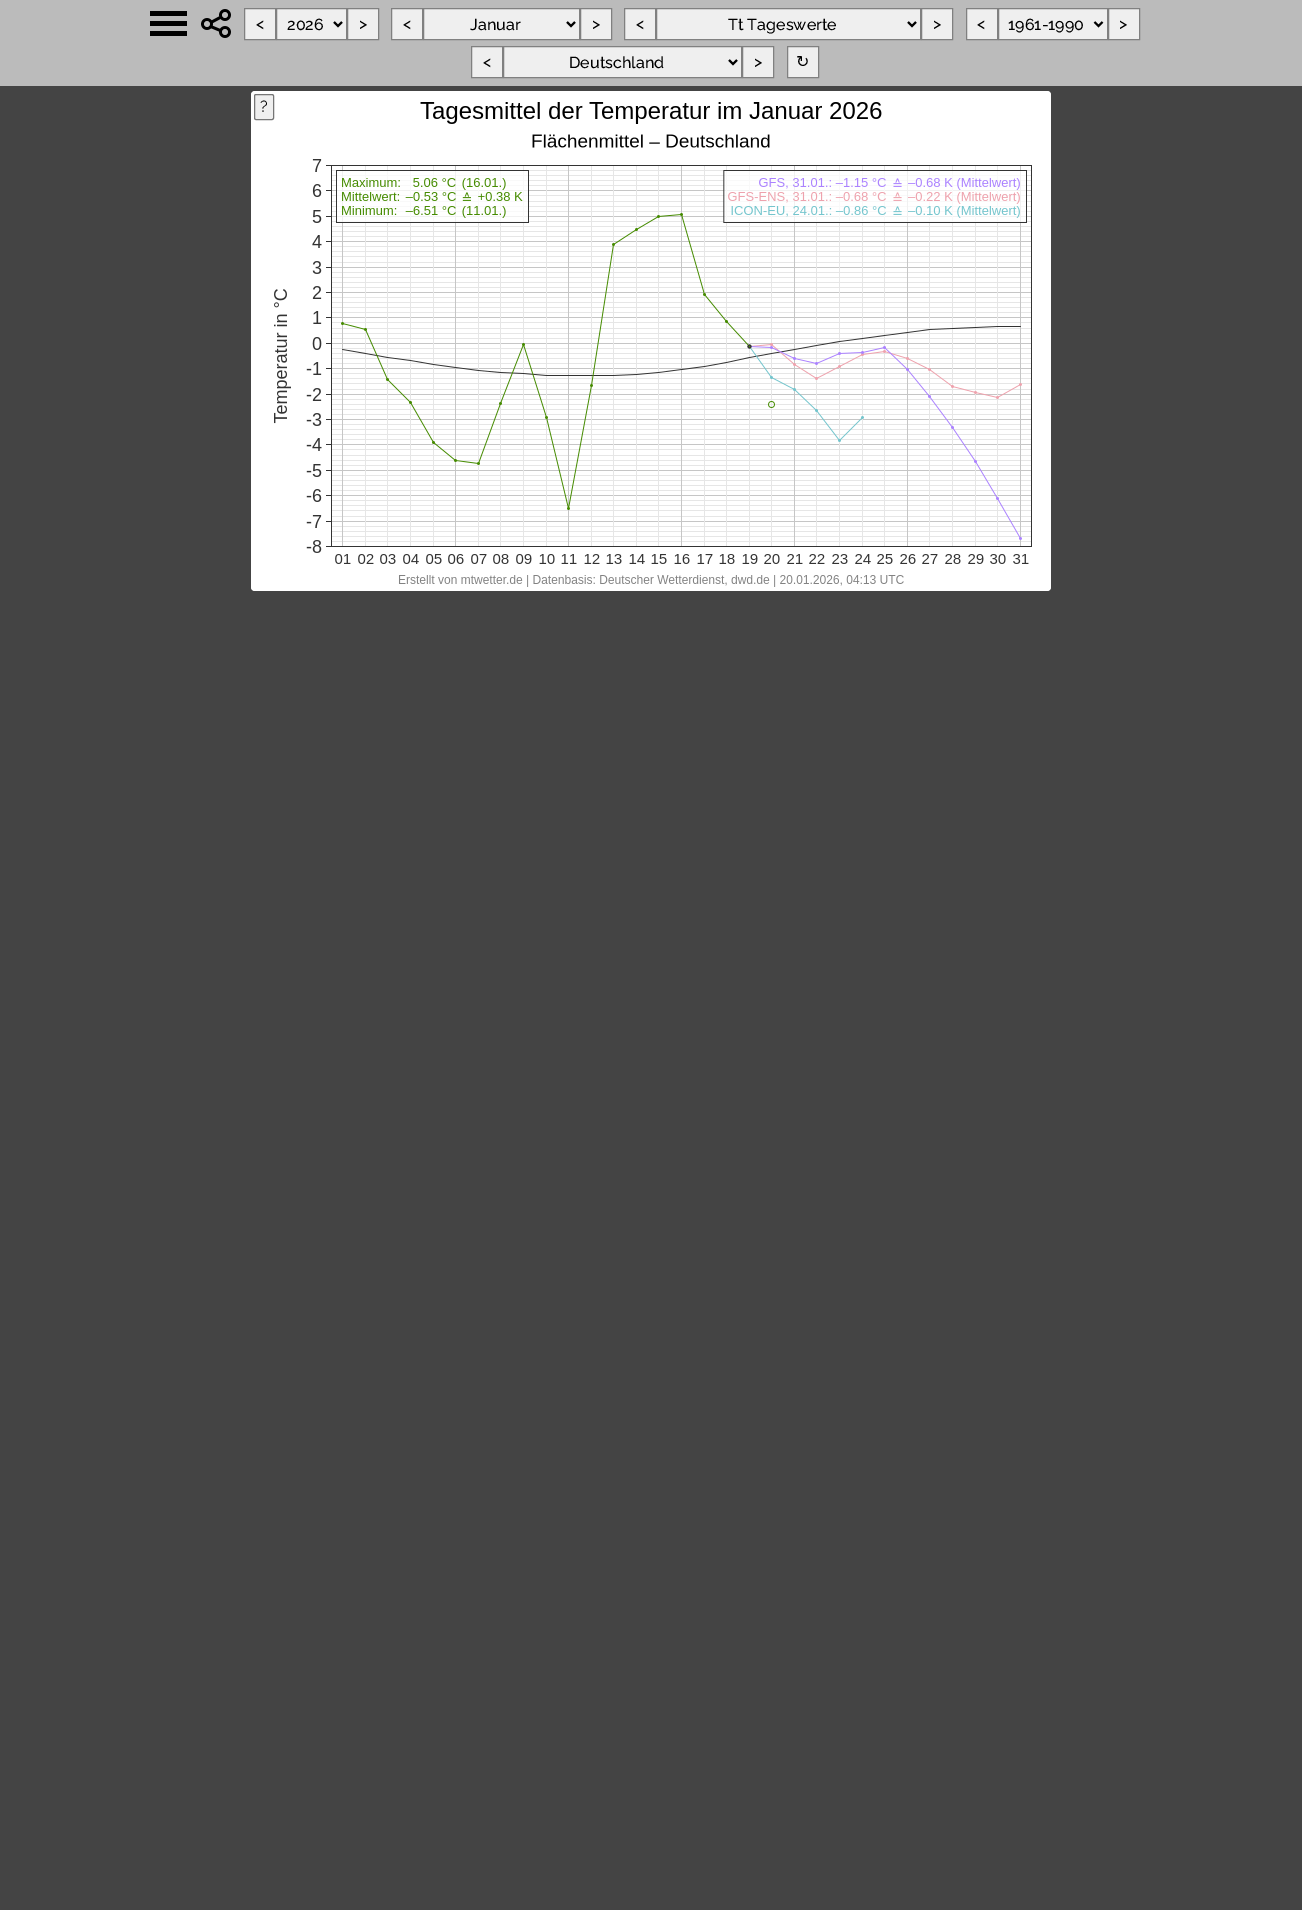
%!PS-Adobe-3.0
%%BoundingBox: 0 0 1302 1910
%%LanguageLevel: 3
%%Pages: 1
%%EndComments
%%BeginProlog
/m { moveto } bind def
/l { lineto } bind def
/h { closepath } bind def
/f { fill } bind def
/S { stroke } bind def
/q { gsave } bind def
/Q { grestore } bind def
/w { setlinewidth } bind def
/fn { [ exch dup neg 0 0 3 -1 roll 0 0 ] selectfont } def
/tx { moveto show } def
/bx { rectfill } def
/rr { 5 dict begin { /r /h /w /y /x } { exch def } forall
  x r add y moveto x w add y 2 copy h add r arct x w add y h add x 1 index r arct
  x y h add x y r arct x y 2 copy exch w add exch r arct closepath end } def
/im { 5 dict begin { /h /w /y /x /name } { exch def } forall
  gsave x y translate w h scale
  w h 8 [w 0 0 h 0 0] name (r) file false 3 colorimage grestore end } def
%%EndProlog
%%BeginSetup
<< /PageSize [1302 1910] >> setpagedevice
%%EndSetup
%%Page: 1 1
0 1910 translate 1 -1 scale
4 setmiterlimit
0.267 setgray
0 0 1302 1910 bx
0.733 setgray
0 0 1302 86 bx
(image0.raw) 150 11 37 25 im
(image1.raw) 201 9 30 29 im
0.937 setgray
244.5 8.5 m 275.5 8.5 l 275.5 39.5 l 244.5 39.5 l h q f Q
0.502 setgray
S
/Raleway-Medium 16 fn
0 setgray
(<) 256 29 tx
0.937 setgray
276.5 8.5 m 346.5 8.5 l 346.5 39.5 l 276.5 39.5 l h q f Q
0.502 setgray
S
0 setgray
2 w
334 22 m 338 26 l 342 22 l S
(2026) 287 30 tx
0.937 setgray
347.5 8.5 m 378.5 8.5 l 378.5 39.5 l 347.5 39.5 l h q f Q
0.502 setgray
1 w
S
0 setgray
(>) 359 29 tx
0.937 setgray
391.5 8.5 m 422.5 8.5 l 422.5 39.5 l 391.5 39.5 l h q f Q
0.502 setgray
S
0 setgray
(<) 403 29 tx
0.937 setgray
423.5 8.5 m 579.5 8.5 l 579.5 39.5 l 423.5 39.5 l h q f Q
0.502 setgray
S
0 setgray
2 w
567 22 m 571 26 l 575 22 l S
(Januar) 470 30 tx
0.937 setgray
580.5 8.5 m 611.5 8.5 l 611.5 39.5 l 580.5 39.5 l h q f Q
0.502 setgray
1 w
S
0 setgray
(>) 592 29 tx
0.937 setgray
624.5 8.5 m 655.5 8.5 l 655.5 39.5 l 624.5 39.5 l h q f Q
0.502 setgray
S
0 setgray
(<) 636 29 tx
0.937 setgray
656.5 8.5 m 920.5 8.5 l 920.5 39.5 l 656.5 39.5 l h q f Q
0.502 setgray
S
0 setgray
2 w
908 22 m 912 26 l 916 22 l S
(Tt Tageswerte) 728 30 tx
0.937 setgray
921.5 8.5 m 952.5 8.5 l 952.5 39.5 l 921.5 39.5 l h q f Q
0.502 setgray
1 w
S
0 setgray
(>) 933 29 tx
0.937 setgray
966.5 8.5 m 997.5 8.5 l 997.5 39.5 l 966.5 39.5 l h q f Q
0.502 setgray
S
0 setgray
(<) 977 29 tx
0.937 setgray
998.5 8.5 m 1107.5 8.5 l 1107.5 39.5 l 998.5 39.5 l h q f Q
0.502 setgray
S
0 setgray
2 w
1094.5 22 m 1098.5 26 l 1102.5 22 l S
(1961-1990) 1008 30 tx
0.937 setgray
1108.5 8.5 m 1139.5 8.5 l 1139.5 39.5 l 1108.5 39.5 l h q f Q
0.502 setgray
1 w
S
0 setgray
(>) 1119 29 tx
0.937 setgray
471.5 46.5 m 502.5 46.5 l 502.5 77.5 l 471.5 77.5 l h q f Q
0.502 setgray
S
0 setgray
(<) 483 67 tx
0.937 setgray
503.5 46.5 m 741.5 46.5 l 741.5 77.5 l 503.5 77.5 l h q f Q
0.502 setgray
S
0 setgray
2 w
729 60 m 733 64 l 737 60 l S
(Deutschland) 569 68 tx
0.937 setgray
742.5 46.5 m 773.5 46.5 l 773.5 77.5 l 742.5 77.5 l h q f Q
0.502 setgray
1 w
S
0 setgray
(>) 754 67 tx
0.937 setgray
787.5 46.5 m 818.5 46.5 l 818.5 77.5 l 787.5 77.5 l h q f Q
0.502 setgray
S
/DejaVuSans-Regular 16 fn
0 setgray
(↻) 796 67 tx
(image2.raw) 251 91 800 500 im
0.937 setgray
254.5 94.5 19 25 1.5 rr q f Q
0.463 setgray
S
/Raleway-Regular 16 fn
0 setgray
(?) 260 112 tx
showpage
%%EOF
